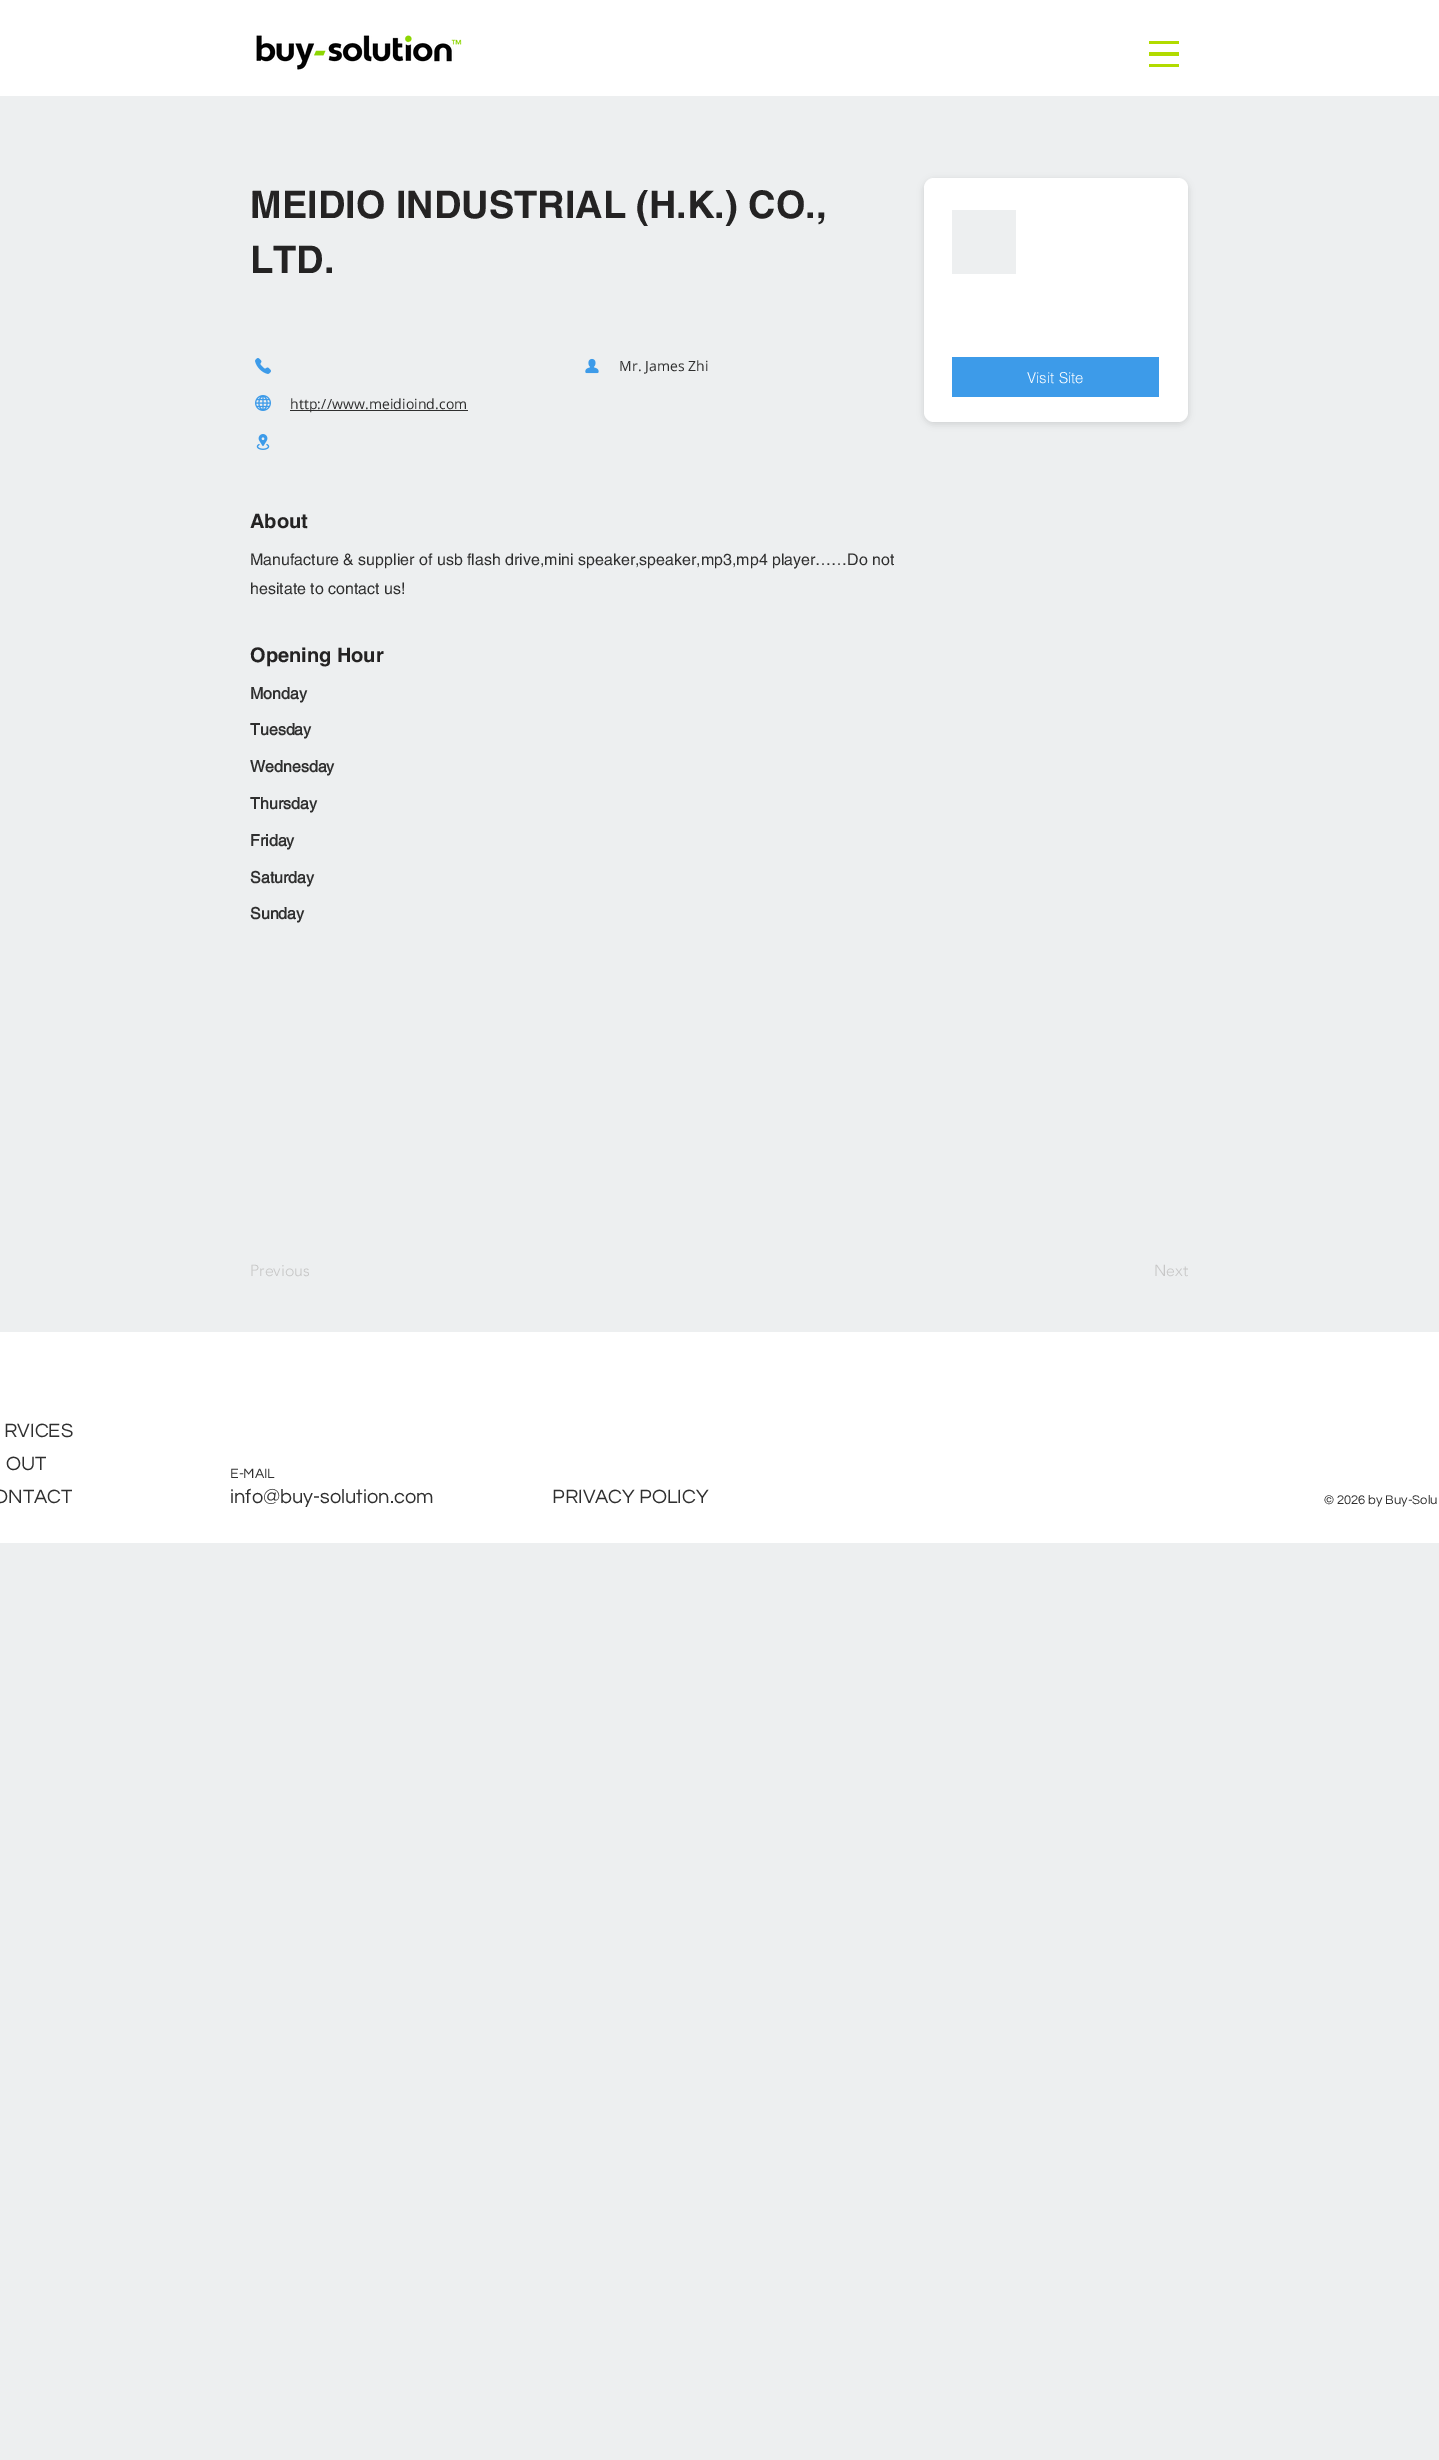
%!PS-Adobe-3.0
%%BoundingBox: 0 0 1439 2460
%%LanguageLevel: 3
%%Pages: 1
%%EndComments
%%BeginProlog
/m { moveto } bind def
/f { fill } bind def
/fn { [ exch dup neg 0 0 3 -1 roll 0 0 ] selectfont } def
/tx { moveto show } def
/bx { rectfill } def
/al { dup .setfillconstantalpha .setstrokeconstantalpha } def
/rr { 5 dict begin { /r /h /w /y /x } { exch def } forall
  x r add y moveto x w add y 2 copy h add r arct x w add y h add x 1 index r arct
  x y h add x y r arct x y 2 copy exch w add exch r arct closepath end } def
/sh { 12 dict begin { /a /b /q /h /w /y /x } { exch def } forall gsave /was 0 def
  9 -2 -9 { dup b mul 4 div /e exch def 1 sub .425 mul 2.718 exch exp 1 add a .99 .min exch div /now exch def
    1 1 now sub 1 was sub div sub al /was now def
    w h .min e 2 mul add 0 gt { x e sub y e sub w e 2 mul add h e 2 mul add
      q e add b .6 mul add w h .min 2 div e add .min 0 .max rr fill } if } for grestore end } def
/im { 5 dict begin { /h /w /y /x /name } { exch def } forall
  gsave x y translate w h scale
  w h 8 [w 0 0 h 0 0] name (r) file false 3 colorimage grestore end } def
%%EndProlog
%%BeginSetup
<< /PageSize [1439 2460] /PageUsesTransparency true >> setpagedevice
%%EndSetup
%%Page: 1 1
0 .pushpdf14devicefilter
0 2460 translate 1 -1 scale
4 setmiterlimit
0.929 0.937 0.941 setrgbcolor
0 0 1439 2460 bx
1 setgray
0 0 1439 96 bx
(image0.raw) 256 35 206 35 im
0.694 0.859 0 setrgbcolor
1149 64 30 3 bx
1149 41 30 3 bx
1149 52 30 4 bx
/helvetica-Bold 38 fn
0.141 0.137 0.137 setrgbcolor
(MEIDIO INDUSTRIAL \(H.K.\) CO.,) 250 218 tx
(LTD.) 250 273 tx
(image1.raw) 255 358 16 16 im
(image2.raw) 585 358 14 16 im
/OpenSans-Regular 14 fn
0.184 setgray
619 371 m 0.1 0 (Mr. James Zhi) ashow
0 setgray
924 180 264 244 10 3.5 0.12 sh
1 setgray
924 178 264 244 10 rr f
0.929 0.937 0.941 setrgbcolor
952 210 64 64 bx
0.239 0.608 0.914 setrgbcolor
952 357 207 40 bx
/helvetica-Light 15 fn
1 setgray
(Visit Site) 1027 383 tx
(image3.raw) 255 395 16 16 im
0.184 setgray
290 410 178 1 bx
/OpenSans-Regular 14 fn
290 409 m 0.1 0 (http://www.meidioind.com) ashow
(image4.raw) 256 434 14 16 im
/helvetica-Bold 20 fn
0.141 0.137 0.137 setrgbcolor
(About) 250 528 tx
/helvetica-Regular 16 fn
0.184 setgray
(Manufacture & supplier of usb flash drive,mini speaker,speaker,mp3,mp4 player……Do not) 250 565 tx
(hesitate to contact us!) 250 594 tx
/helvetica-Bold 20 fn
0.141 0.137 0.137 setrgbcolor
(Opening Hour) 250 662 tx
/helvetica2-Bold 16 fn
0.184 setgray
(Monday) 250 699 tx
(Tuesday) 250 735 tx
(Wednesday) 250 772 tx
(Thursday) 250 809 tx
(Friday) 250 846 tx
(Saturday) 250 883 tx
(Sunday) 250 919 tx
/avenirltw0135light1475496-Light 16 fn
0.78 setgray
(Previous) 250 1276 tx
(Next) 1154 1276 tx
1 setgray
0 1332 1439 211 bx
/Questrial-Regular 20 fn
0.184 setgray
(RVICES) 4 1437 tx
(OUT) 6 1470 tx
/Questrial-Regular 14 fn
(E-MAIL) 230 1478 tx
/Questrial-Regular 20 fn
(ONTACT) -7 1503 tx
(info@buy-solution.com) 230 1503 tx
(PRIVACY POLICY) 552 1503 tx
/Questrial-Regular 13 fn
(© 2026 by Buy-Solu) 1324 1504 tx
.poppdf14devicefilter showpage
%%EOF
